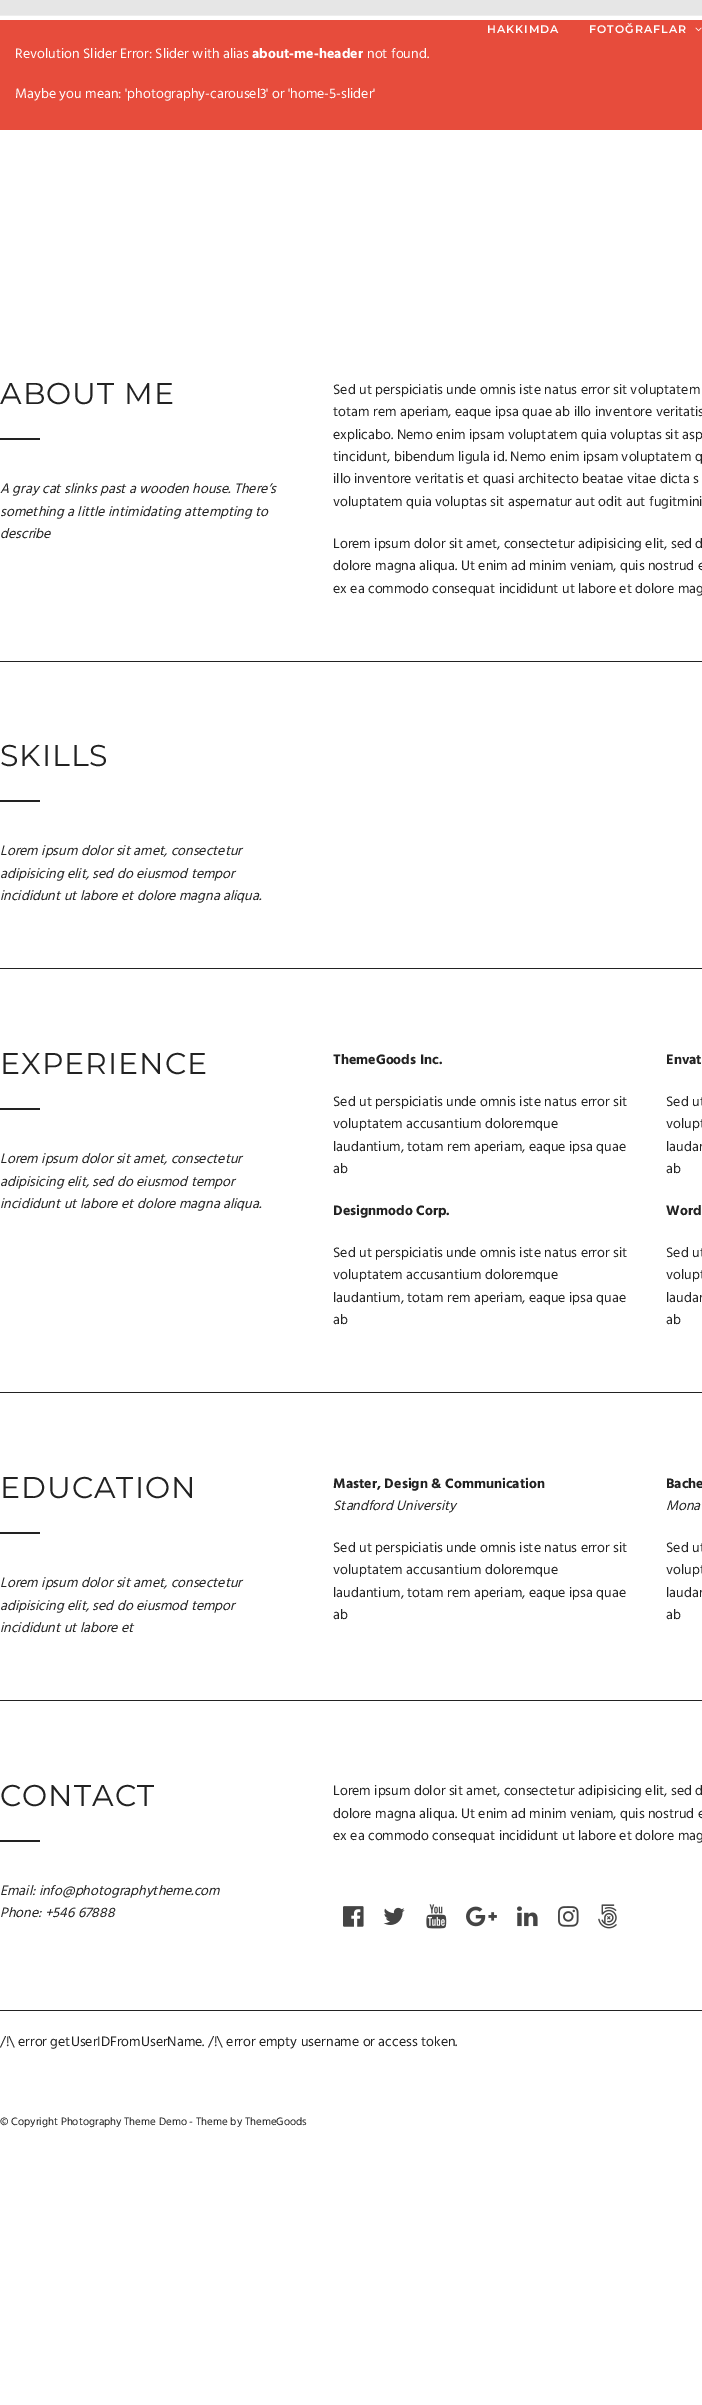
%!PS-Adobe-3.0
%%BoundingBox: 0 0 702 2405
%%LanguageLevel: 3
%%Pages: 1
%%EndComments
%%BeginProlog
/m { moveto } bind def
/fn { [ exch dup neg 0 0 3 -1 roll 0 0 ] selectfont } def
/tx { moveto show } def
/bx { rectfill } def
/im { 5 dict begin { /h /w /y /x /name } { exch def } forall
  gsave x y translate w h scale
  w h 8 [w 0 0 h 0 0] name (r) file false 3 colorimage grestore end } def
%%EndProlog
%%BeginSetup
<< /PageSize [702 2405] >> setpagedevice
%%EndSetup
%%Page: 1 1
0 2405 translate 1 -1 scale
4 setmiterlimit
1 setgray
0 0 702 2405 bx
0.902 setgray
0 0 702 15 bx
0.933 setgray
0 15 702 1 bx
0.906 0.298 0.235 setrgbcolor
0 20 702 110 bx
/Montserrat-SemiBold 11 fn
1 setgray
487 33 m 1 0 (HAKKIMDA) ashow
589 33 m 1 0 (FOTOĞRAFLAR) ashow
(image0.raw) 695 27 7 5 im
/Hind-Regular 14 fn
(Revolution Slider Error: Slider with alias) 15 58 tx
/Hind-Bold 14 fn
(about-me-header) 252 58 tx
/Hind-Regular 14 fn
(not found.) 367 58 tx
(Maybe you mean: 'photography-carousel3' or 'home-5-slider') 15 98 tx
/Montserrat-Thin 30 fn
0.133 setgray
0 404 m 1 0 (ABOUT ME) ashow
0 438 40 2 bx
/Hind-Italic 14 fn
(A gray cat slinks past a wooden house. There’s) 0 493 tx
(something a little intimidating attempting to) 0 516 tx
(describe) 0 538 tx
/Hind-Regular 14 fn
(Sed ut perspiciatis unde omnis iste natus error sit voluptatem) 333 394 tx
(totam rem aperiam, eaque ipsa quae ab illo inventore veritatis) 333 416 tx
(explicabo. Nemo enim ipsam voluptatem quia voluptas sit asp) 333 439 tx
(tincidunt, bibendum ligula id. Nemo enim ipsam voluptatem q) 333 461 tx
(illo inventore veritatis et quasi architecto beatae vitae dicta s) 333 483 tx
(voluptatem quia voluptas sit aspernatur aut odit aut fugitmini) 333 506 tx
(Lorem ipsum dolor sit amet, consectetur adipisicing elit, sed d) 333 548 tx
(dolore magna aliqua. Ut enim ad minim veniam, quis nostrud e) 333 570 tx
(ex ea commodo consequat incididunt ut labore et dolore mag) 333 593 tx
0 661 702 1 bx
/Montserrat-Thin 30 fn
0 766 m 1 0 (SKILLS) ashow
0 800 40 2 bx
/Hind-Italic 14 fn
(Lorem ipsum dolor sit amet, consectetur) 0 855 tx
(adipisicing elit, sed do eiusmod tempor) 0 878 tx
(incididunt ut labore et dolore magna aliqua.) 0 900 tx
0 968 702 1 bx
/Montserrat-Thin 30 fn
0 1074 m 1 0 (EXPERIENCE) ashow
0 1108 40 2 bx
/Hind-Italic 14 fn
(Lorem ipsum dolor sit amet, consectetur) 0 1163 tx
(adipisicing elit, sed do eiusmod tempor) 0 1186 tx
(incididunt ut labore et dolore magna aliqua.) 0 1208 tx
/Hind-Bold 14 fn
(ThemeGoods Inc.) 333 1064 tx
/Hind-Regular 14 fn
(Sed ut perspiciatis unde omnis iste natus error sit) 333 1106 tx
(voluptatem accusantium doloremque) 333 1128 tx
(laudantium, totam rem aperiam, eaque ipsa quae) 333 1151 tx
(ab) 333 1173 tx
/Hind-Bold 14 fn
(Designmodo Corp.) 333 1215 tx
/Hind-Regular 14 fn
(Sed ut perspiciatis unde omnis iste natus error sit) 333 1257 tx
(voluptatem accusantium doloremque) 333 1279 tx
(laudantium, totam rem aperiam, eaque ipsa quae) 333 1302 tx
(ab) 333 1324 tx
/Hind-Bold 14 fn
(Envat) 666 1064 tx
/Hind-Regular 14 fn
(Sed ut) 666 1106 tx
(volupt) 666 1128 tx
(laudan) 666 1151 tx
(ab) 666 1173 tx
/Hind-Bold 14 fn
(Word) 666 1215 tx
/Hind-Regular 14 fn
(Sed ut) 666 1257 tx
(volupt) 666 1279 tx
(laudan) 666 1302 tx
(ab) 666 1324 tx
0 1392 702 1 bx
/Montserrat-Thin 30 fn
0 1498 m 1 0 (EDUCATION) ashow
0 1532 40 2 bx
/Hind-Italic 14 fn
(Lorem ipsum dolor sit amet, consectetur) 0 1587 tx
(adipisicing elit, sed do eiusmod tempor) 0 1610 tx
(incididunt ut labore et) 0 1632 tx
/Hind-Bold 14 fn
(Master, Design & Communication) 333 1488 tx
/Hind-Italic 14 fn
(Standford University) 333 1510 tx
/Hind-Regular 14 fn
(Sed ut perspiciatis unde omnis iste natus error sit) 333 1552 tx
(voluptatem accusantium doloremque) 333 1574 tx
(laudantium, totam rem aperiam, eaque ipsa quae) 333 1597 tx
(ab) 333 1619 tx
/Hind-Bold 14 fn
(Bache) 666 1488 tx
/Hind-Italic 14 fn
(Mona) 666 1510 tx
/Hind-Regular 14 fn
(Sed ut) 666 1552 tx
(volupt) 666 1574 tx
(laudan) 666 1597 tx
(ab) 666 1619 tx
0 1700 702 1 bx
/Montserrat-Thin 30 fn
0 1806 m 1 0 (CONTACT) ashow
0 1840 40 2 bx
/Hind-Italic 14 fn
(Email: info@photographytheme.com) 0 1895 tx
(Phone: +546 67888) 0 1917 tx
/Hind-Regular 14 fn
(Lorem ipsum dolor sit amet, consectetur adipisicing elit, sed d) 333 1795 tx
(dolore magna aliqua. Ut enim ad minim veniam, quis nostrud e) 333 1818 tx
(ex ea commodo consequat incididunt ut labore et dolore mag) 333 1840 tx
(image1.raw) 343 1906 21 21 im
(image2.raw) 383 1907 22 18 im
(image3.raw) 426 1904 21 25 im
(image4.raw) 466 1906 31 21 im
(image5.raw) 517 1906 21 21 im
(image6.raw) 558 1906 21 21 im
(image7.raw) 598 1904 19 25 im
0 2010 702 1 bx
(/!\\ error getUserIDFromUserName. /!\\ error empty username or access token.) 0 2046 tx
/Hind-Regular 11 fn
(© Copyright Photography Theme Demo - Theme by ThemeGoods) 0 2125 tx
showpage
%%EOF
